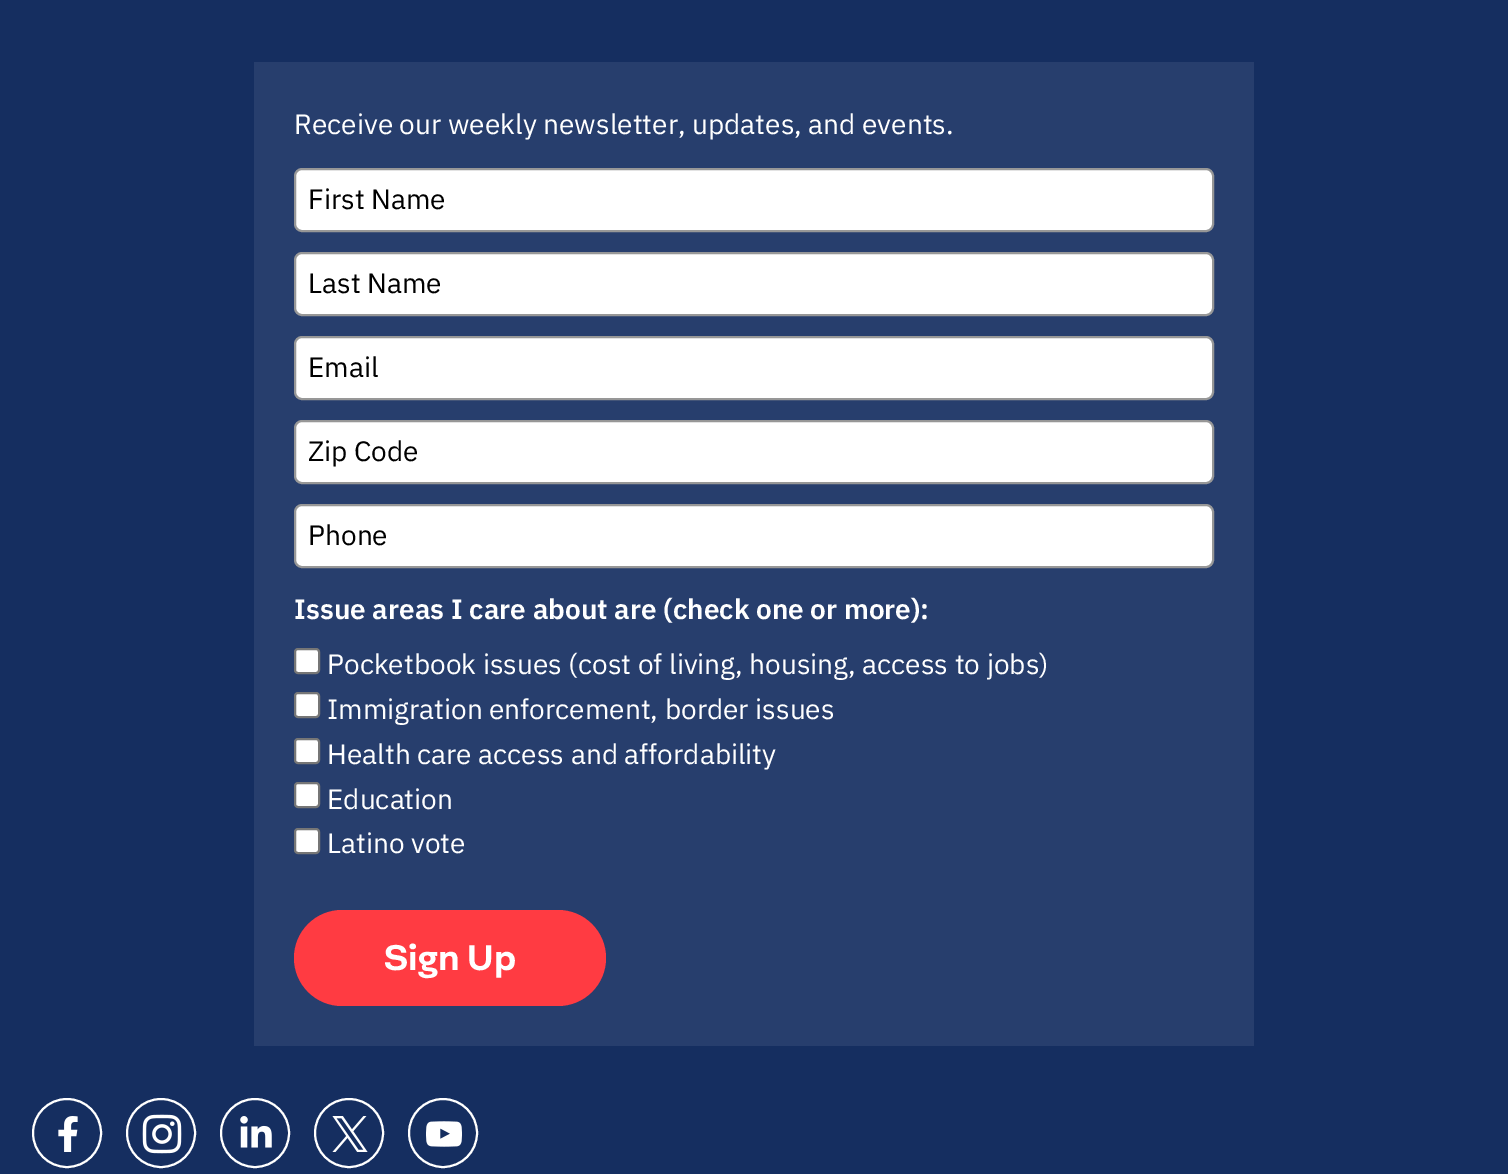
%!PS-Adobe-3.0
%%BoundingBox: 0 0 1508 1174
%%LanguageLevel: 3
%%Pages: 1
%%EndComments
%%BeginProlog
/f { fill } bind def
/S { stroke } bind def
/q { gsave } bind def
/Q { grestore } bind def
/w { setlinewidth } bind def
/fn { [ exch dup neg 0 0 3 -1 roll 0 0 ] selectfont } def
/tx { moveto show } def
/bx { rectfill } def
/ci { newpath 0 360 arc closepath } def
/rr { 5 dict begin { /r /h /w /y /x } { exch def } forall
  x r add y moveto x w add y 2 copy h add r arct x w add y h add x 1 index r arct
  x y h add x y r arct x y 2 copy exch w add exch r arct closepath end } def
/im { 5 dict begin { /h /w /y /x /name } { exch def } forall
  gsave x y translate w h scale
  w h 8 [w 0 0 h 0 0] name (r) file false 3 colorimage grestore end } def
%%EndProlog
%%BeginSetup
<< /PageSize [1508 1174] >> setpagedevice
%%EndSetup
%%Page: 1 1
0 1174 translate 1 -1 scale
4 setmiterlimit
0.082 0.18 0.376 setrgbcolor
0 0 1508 1174 bx
0.153 0.243 0.427 setrgbcolor
254 62 1000 984 bx
/IBMPlexSans-Regular 28 fn
1 setgray
(Receive our weekly newsletter, updates, and events.) 294 134 tx
295 169 918 62 7 rr q f Q
0.592 setgray
2 w
S
0 setgray
(First Name) 308 209 tx
1 setgray
295 253 918 62 7 rr q f Q
0.592 setgray
S
0 setgray
(Last Name) 308 293 tx
1 setgray
295 337 918 62 7 rr q f Q
0.592 setgray
S
0 setgray
(Email) 308 377 tx
1 setgray
295 421 918 62 7 rr q f Q
0.592 setgray
S
0 setgray
(Zip Code) 308 461 tx
1 setgray
295 505 918 62 7 rr q f Q
0.592 setgray
S
0 setgray
(Phone) 308 545 tx
/IBMPlexSans-SemiBold 28 fn
1 setgray
(Issue areas I care about are \(check one or more\):) 294 619 tx
295 649 24 24 3 rr q f Q
0.463 setgray
S
/IBMPlexSans-Regular 28 fn
1 setgray
(Pocketbook issues \(cost of living, housing, access to jobs\)) 327 674 tx
295 693 24 24 3 rr q f Q
0.463 setgray
S
1 setgray
(Immigration enforcement, border issues) 327 719 tx
295 739 24 24 3 rr q f Q
0.463 setgray
S
1 setgray
(Health care access and affordability) 327 764 tx
295 783 24 24 3 rr q f Q
0.463 setgray
S
1 setgray
(Education) 327 809 tx
295 829 24 24 3 rr q f Q
0.463 setgray
S
1 setgray
(Latino vote) 327 853 tx
1 0.231 0.259 setrgbcolor
294 910 312 96 48 rr f
/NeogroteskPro-Bold 36 fn
1 setgray
(Sign Up) 384 970 tx
67 1133 34 ci S
(image0.raw) 58 1116 20 36 im
161 1133 34 ci S
(image1.raw) 142 1114 40 40 im
255 1133 34 ci S
(image2.raw) 240 1116 32 32 im
349 1133 34 ci S
(image3.raw) 332 1116 36 36 im
443 1133 34 ci S
(image4.raw) 426 1121 36 26 im
showpage
%%EOF
